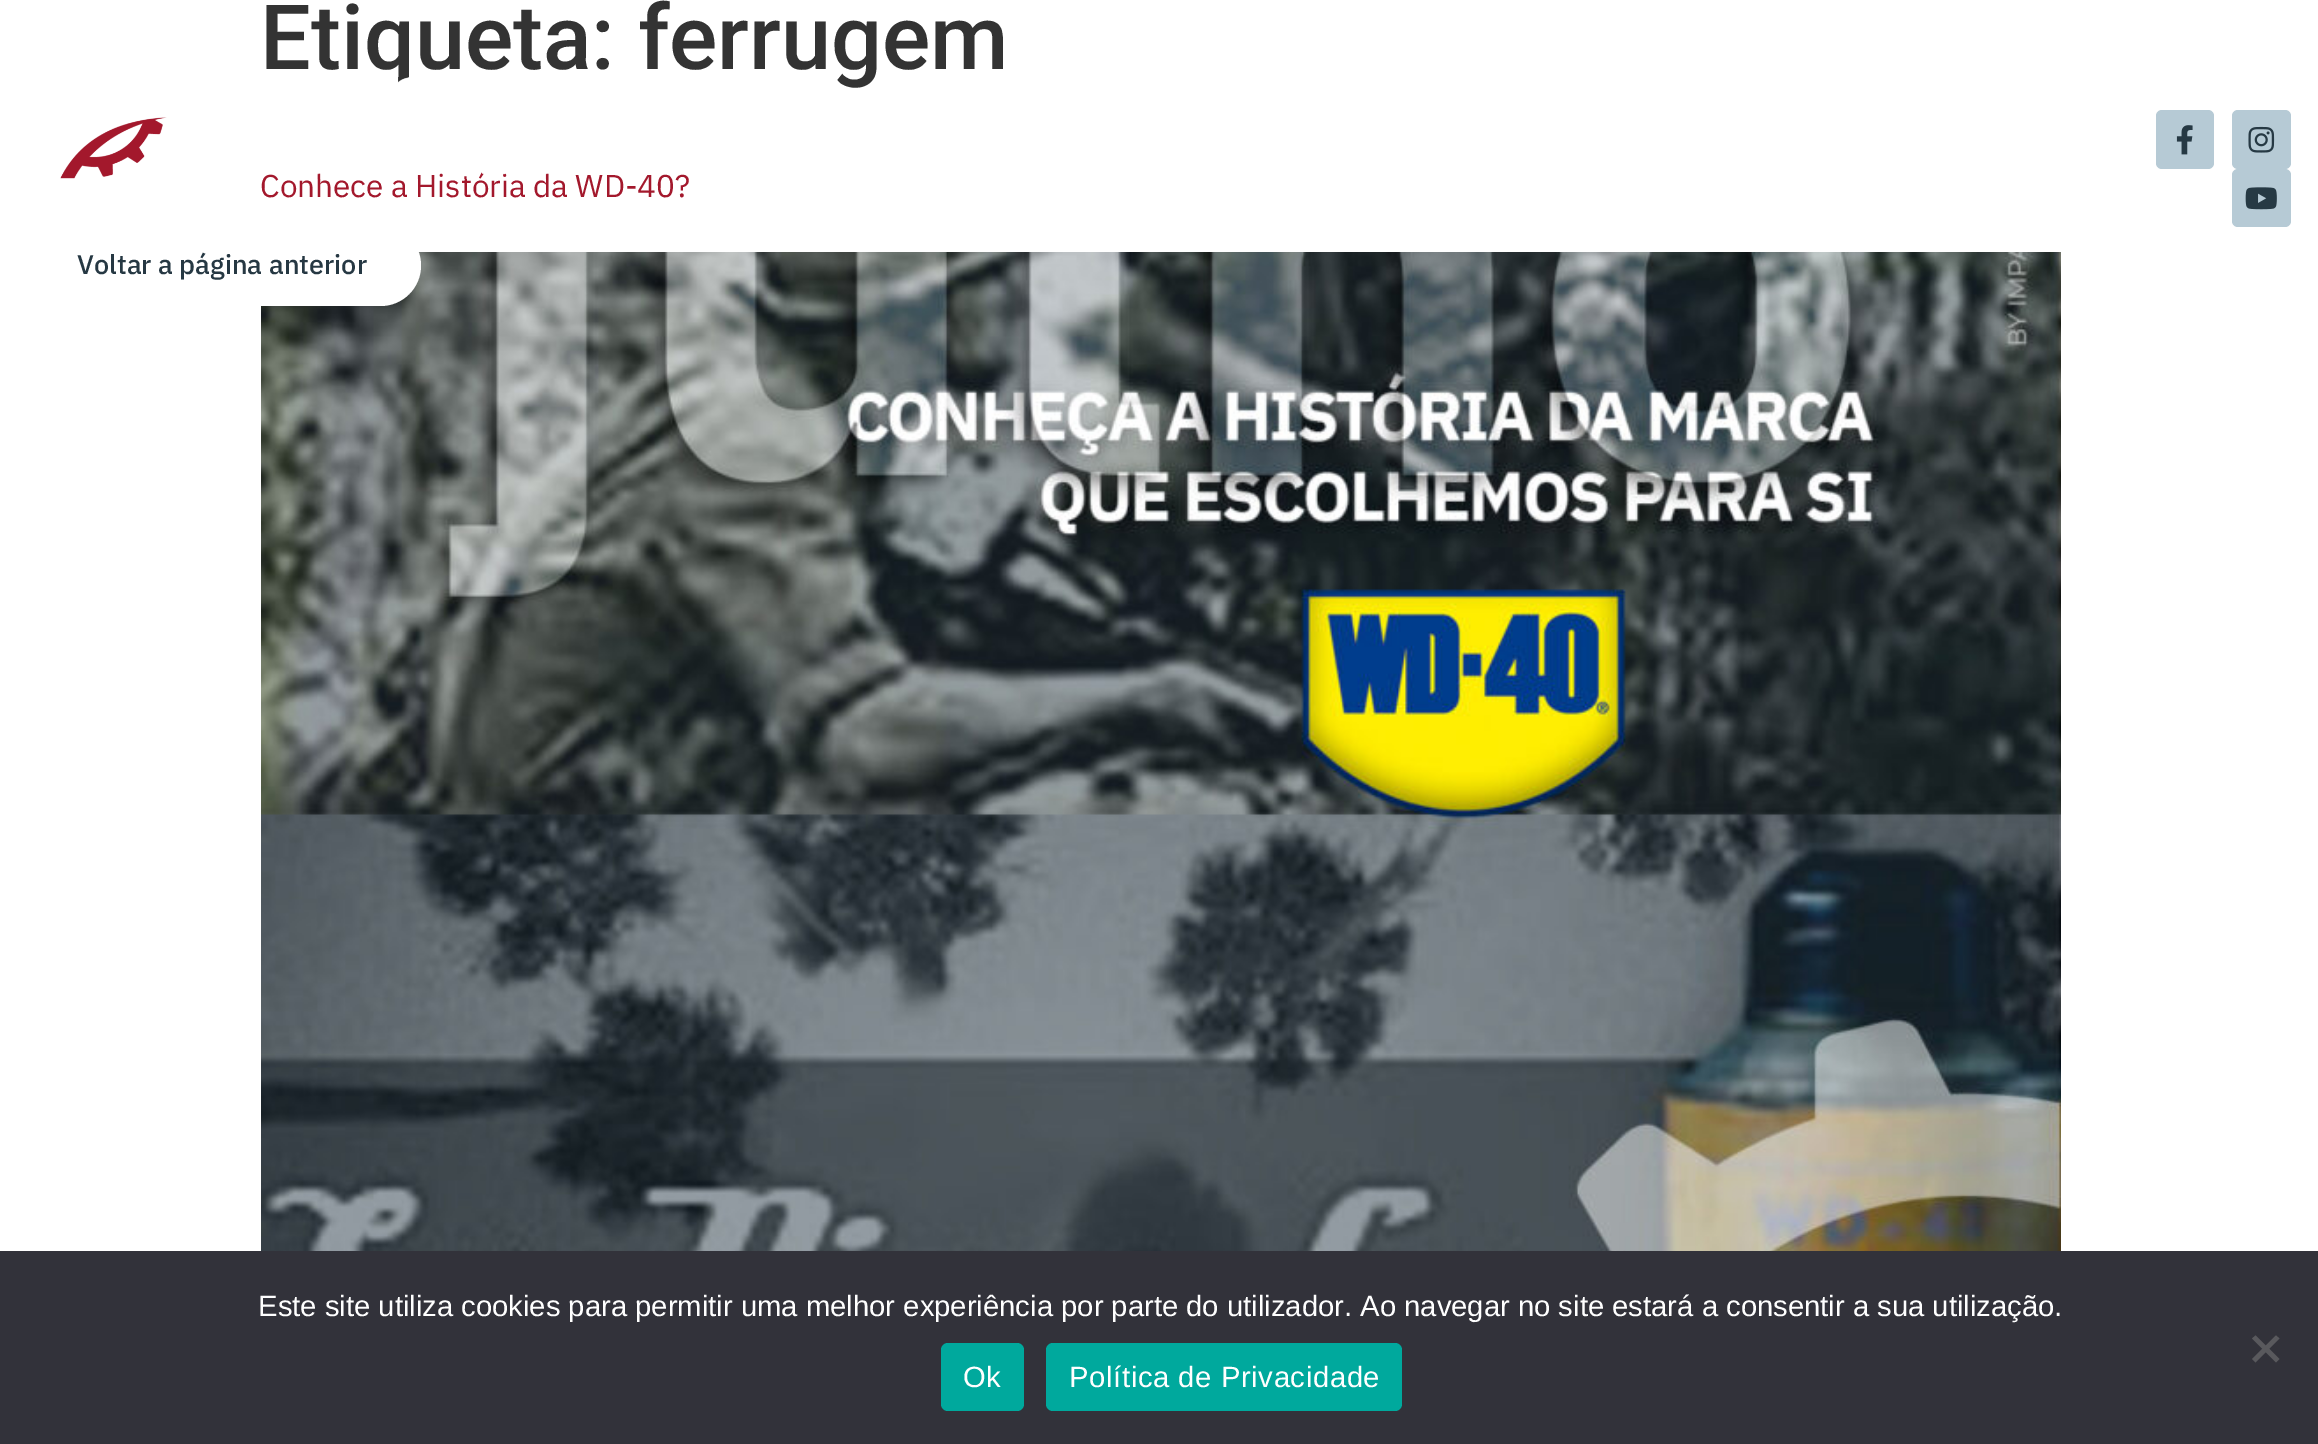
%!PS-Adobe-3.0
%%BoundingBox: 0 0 2318 1444
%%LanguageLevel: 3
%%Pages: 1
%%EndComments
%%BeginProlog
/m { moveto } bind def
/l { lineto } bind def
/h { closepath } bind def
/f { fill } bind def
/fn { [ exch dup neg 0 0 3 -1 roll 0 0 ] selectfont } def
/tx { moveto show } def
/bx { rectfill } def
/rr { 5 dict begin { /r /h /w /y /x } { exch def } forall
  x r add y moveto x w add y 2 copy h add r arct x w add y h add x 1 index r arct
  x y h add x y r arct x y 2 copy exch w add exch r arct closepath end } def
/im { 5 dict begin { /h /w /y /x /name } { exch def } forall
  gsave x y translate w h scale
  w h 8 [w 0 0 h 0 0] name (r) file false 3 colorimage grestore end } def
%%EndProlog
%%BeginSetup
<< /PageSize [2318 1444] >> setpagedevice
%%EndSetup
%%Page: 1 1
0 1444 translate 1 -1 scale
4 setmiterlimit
1 setgray
0 0 2318 1444 bx
/Roboto-Medium 90 fn
0.2 setgray
(Etiqueta: ferrugem) 260 69 tx
/IBMPlexSans-Regular 31.5 fn
0.639 0.094 0.173 setrgbcolor
(Conhece a História da WD-40?) 260 197 tx
(image0.raw) 261 252 1800 999 im
0.714 0.792 0.835 setrgbcolor
2156 110 58 59 6 rr f
(image1.raw) 2176 125 17 30 im
2232 110 59 59 6 rr f
(image2.raw) 2248 126 27 27 im
2232 169 59 58 6 rr f
(image3.raw) 2245 187 32 23 im
(image4.raw) 60 77 487 102 im
1 setgray
23 225 398 81 40.5 rr f
/IBMPlexSans-Medium 27 fn
0.149 0.22 0.263 setrgbcolor
(Voltar a página anterior) 77 274 tx
0.196 0.196 0.227 setrgbcolor
0 1251 2318 193 bx
/LiberationSans-Regular 29.25 fn
1 setgray
(Este site utiliza cookies para permitir uma melhor experiência por parte do utilizador. Ao navegar no site estará a consentir a sua utilização.) 258 1316 tx
0.349 0.349 0.365 setrgbcolor
2276 1335.5 m 2279.5 1338.5 l 2255.5 1362.5 l 2252 1359 l h f
2252 1338.5 m 2255.5 1335.5 l 2279.5 1359 l 2276 1362.5 l h f
0 0.663 0.616 setrgbcolor
941 1343 83 68 7 rr f
1 setgray
963 1387 m 0.6 0 (Ok) ashow
0 0.663 0.616 setrgbcolor
1046 1343 356 68 7 rr f
1 setgray
1069 1387 m 0.6 0 (Política de Privacidade) ashow
showpage
%%EOF
